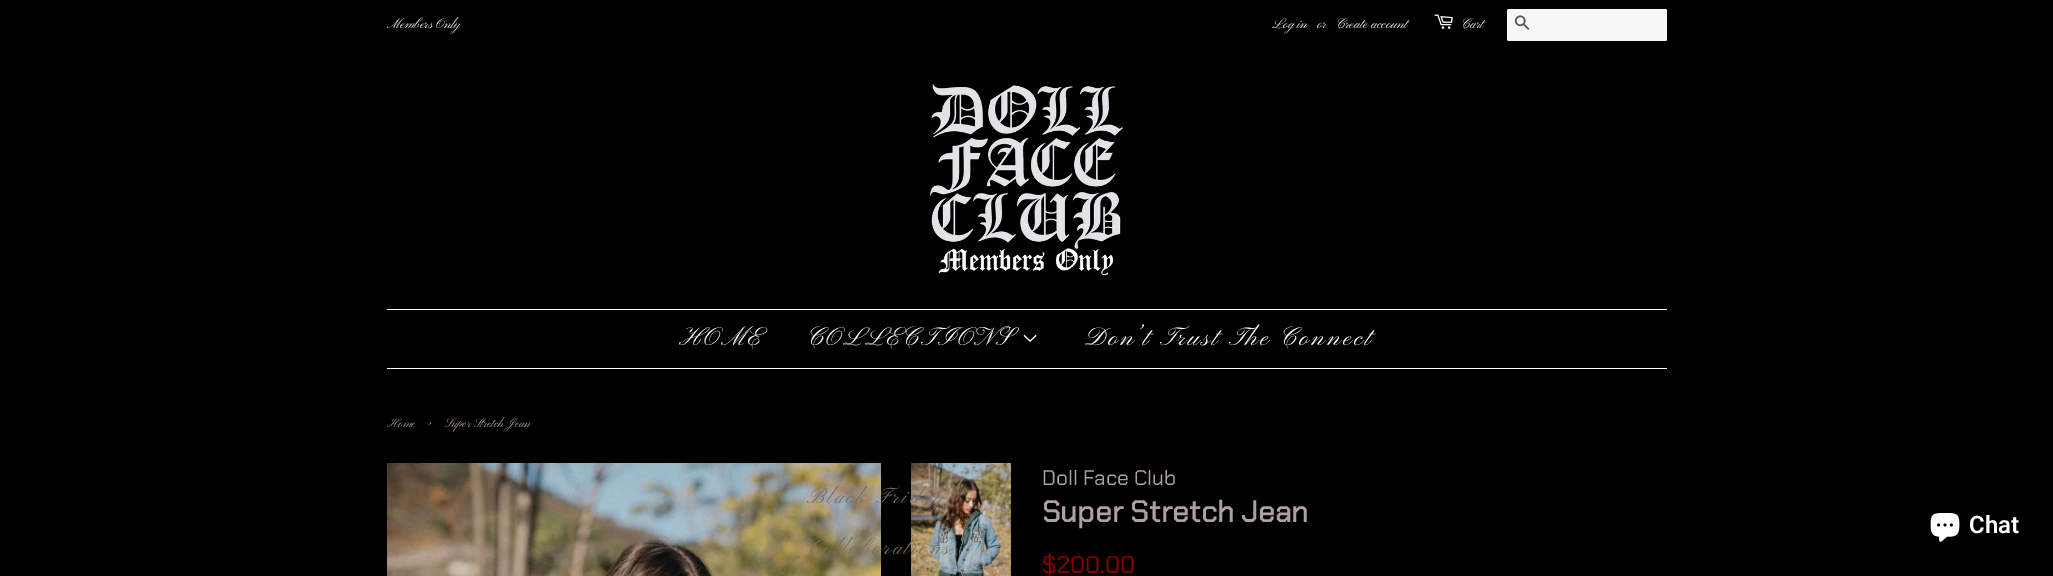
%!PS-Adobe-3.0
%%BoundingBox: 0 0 2053 576
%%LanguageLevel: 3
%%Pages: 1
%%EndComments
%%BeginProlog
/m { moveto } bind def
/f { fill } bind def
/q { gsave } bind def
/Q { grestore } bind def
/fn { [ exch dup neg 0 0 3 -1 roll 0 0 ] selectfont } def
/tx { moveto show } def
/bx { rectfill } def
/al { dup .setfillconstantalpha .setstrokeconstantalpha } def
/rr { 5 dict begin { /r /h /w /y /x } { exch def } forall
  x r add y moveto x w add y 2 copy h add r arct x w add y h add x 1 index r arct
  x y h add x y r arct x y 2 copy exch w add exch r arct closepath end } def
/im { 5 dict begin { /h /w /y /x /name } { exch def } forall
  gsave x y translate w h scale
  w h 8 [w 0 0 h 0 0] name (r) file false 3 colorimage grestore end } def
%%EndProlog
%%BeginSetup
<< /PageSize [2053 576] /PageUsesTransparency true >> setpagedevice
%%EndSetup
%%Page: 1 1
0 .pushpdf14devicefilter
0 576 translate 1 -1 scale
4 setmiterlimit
0 setgray
0 0 2053 576 bx
q
387 13 73 24 rectclip
/PinyonScript-Regular 14 fn
1 setgray
(Members Only) 387 28 tx
Q
/PinyonScript-Regular 14 fn
1 setgray
(Log in) 1272 28 tx
(or) 1317 28 tx
(Create account) 1336 28 tx
(image0.raw) 1434 14 19 15 im
(Cart) 1461 28 tx
1507 9 160 32 2 rr f
0.03 al
0 setgray
1507 9 160 32 bx
1 al
(image1.raw) 1514 15 16 15 im
(image2.raw) 929 84 194 191 im
1 setgray
387 309 1280 1 bx
387 368 1280 1 bx
/PinyonScript-Regular 26 fn
679 345 m 2.6 0 (HOME) ashow
807 345 m 2.6 0 (COLLECTIONS) ashow
(image3.raw) 1023 334 14 8 im
(image4.raw) 387 463 494 113 im
(image5.raw) 911 463 100 113 im
/PinyonScript-Regular 22 fn
0.463 0.431 0.392 setrgbcolor
807 503 m 2.6 0 (Black Friday) ashow
0.467 0.439 0.345 setrgbcolor
807 554 m 2.6 0 (Collaborations) ashow
/PinyonScript-Regular 26 fn
1 setgray
1085 345 m 2.6 0 (Don’t Trust The Connect) ashow
/PinyonScript-Regular 12.75 fn
0.682 0.627 0.627 setrgbcolor
(Home) 387 427 tx
/PinyonScript-Regular 18 fn
(›) 428 427 tx
/PinyonScript-Regular 12.75 fn
(Super Stretch Jean) 445 427 tx
/ChakraPetch-Regular 21 fn
(Doll Face Club) 1042 485 tx
/ChakraPetch-Bold 30 fn
(Super Stretch Jean) 1042 522 tx
/ChakraPetch-Regular 24 fn
0.561 0 0 setrgbcolor
($200.00) 1042 573 tx
(image6.raw) 1930 513 30 29 im
/Roboto-SemiBold 24 fn
1 setgray
(Chat) 1969 533 tx
.poppdf14devicefilter showpage
%%EOF
